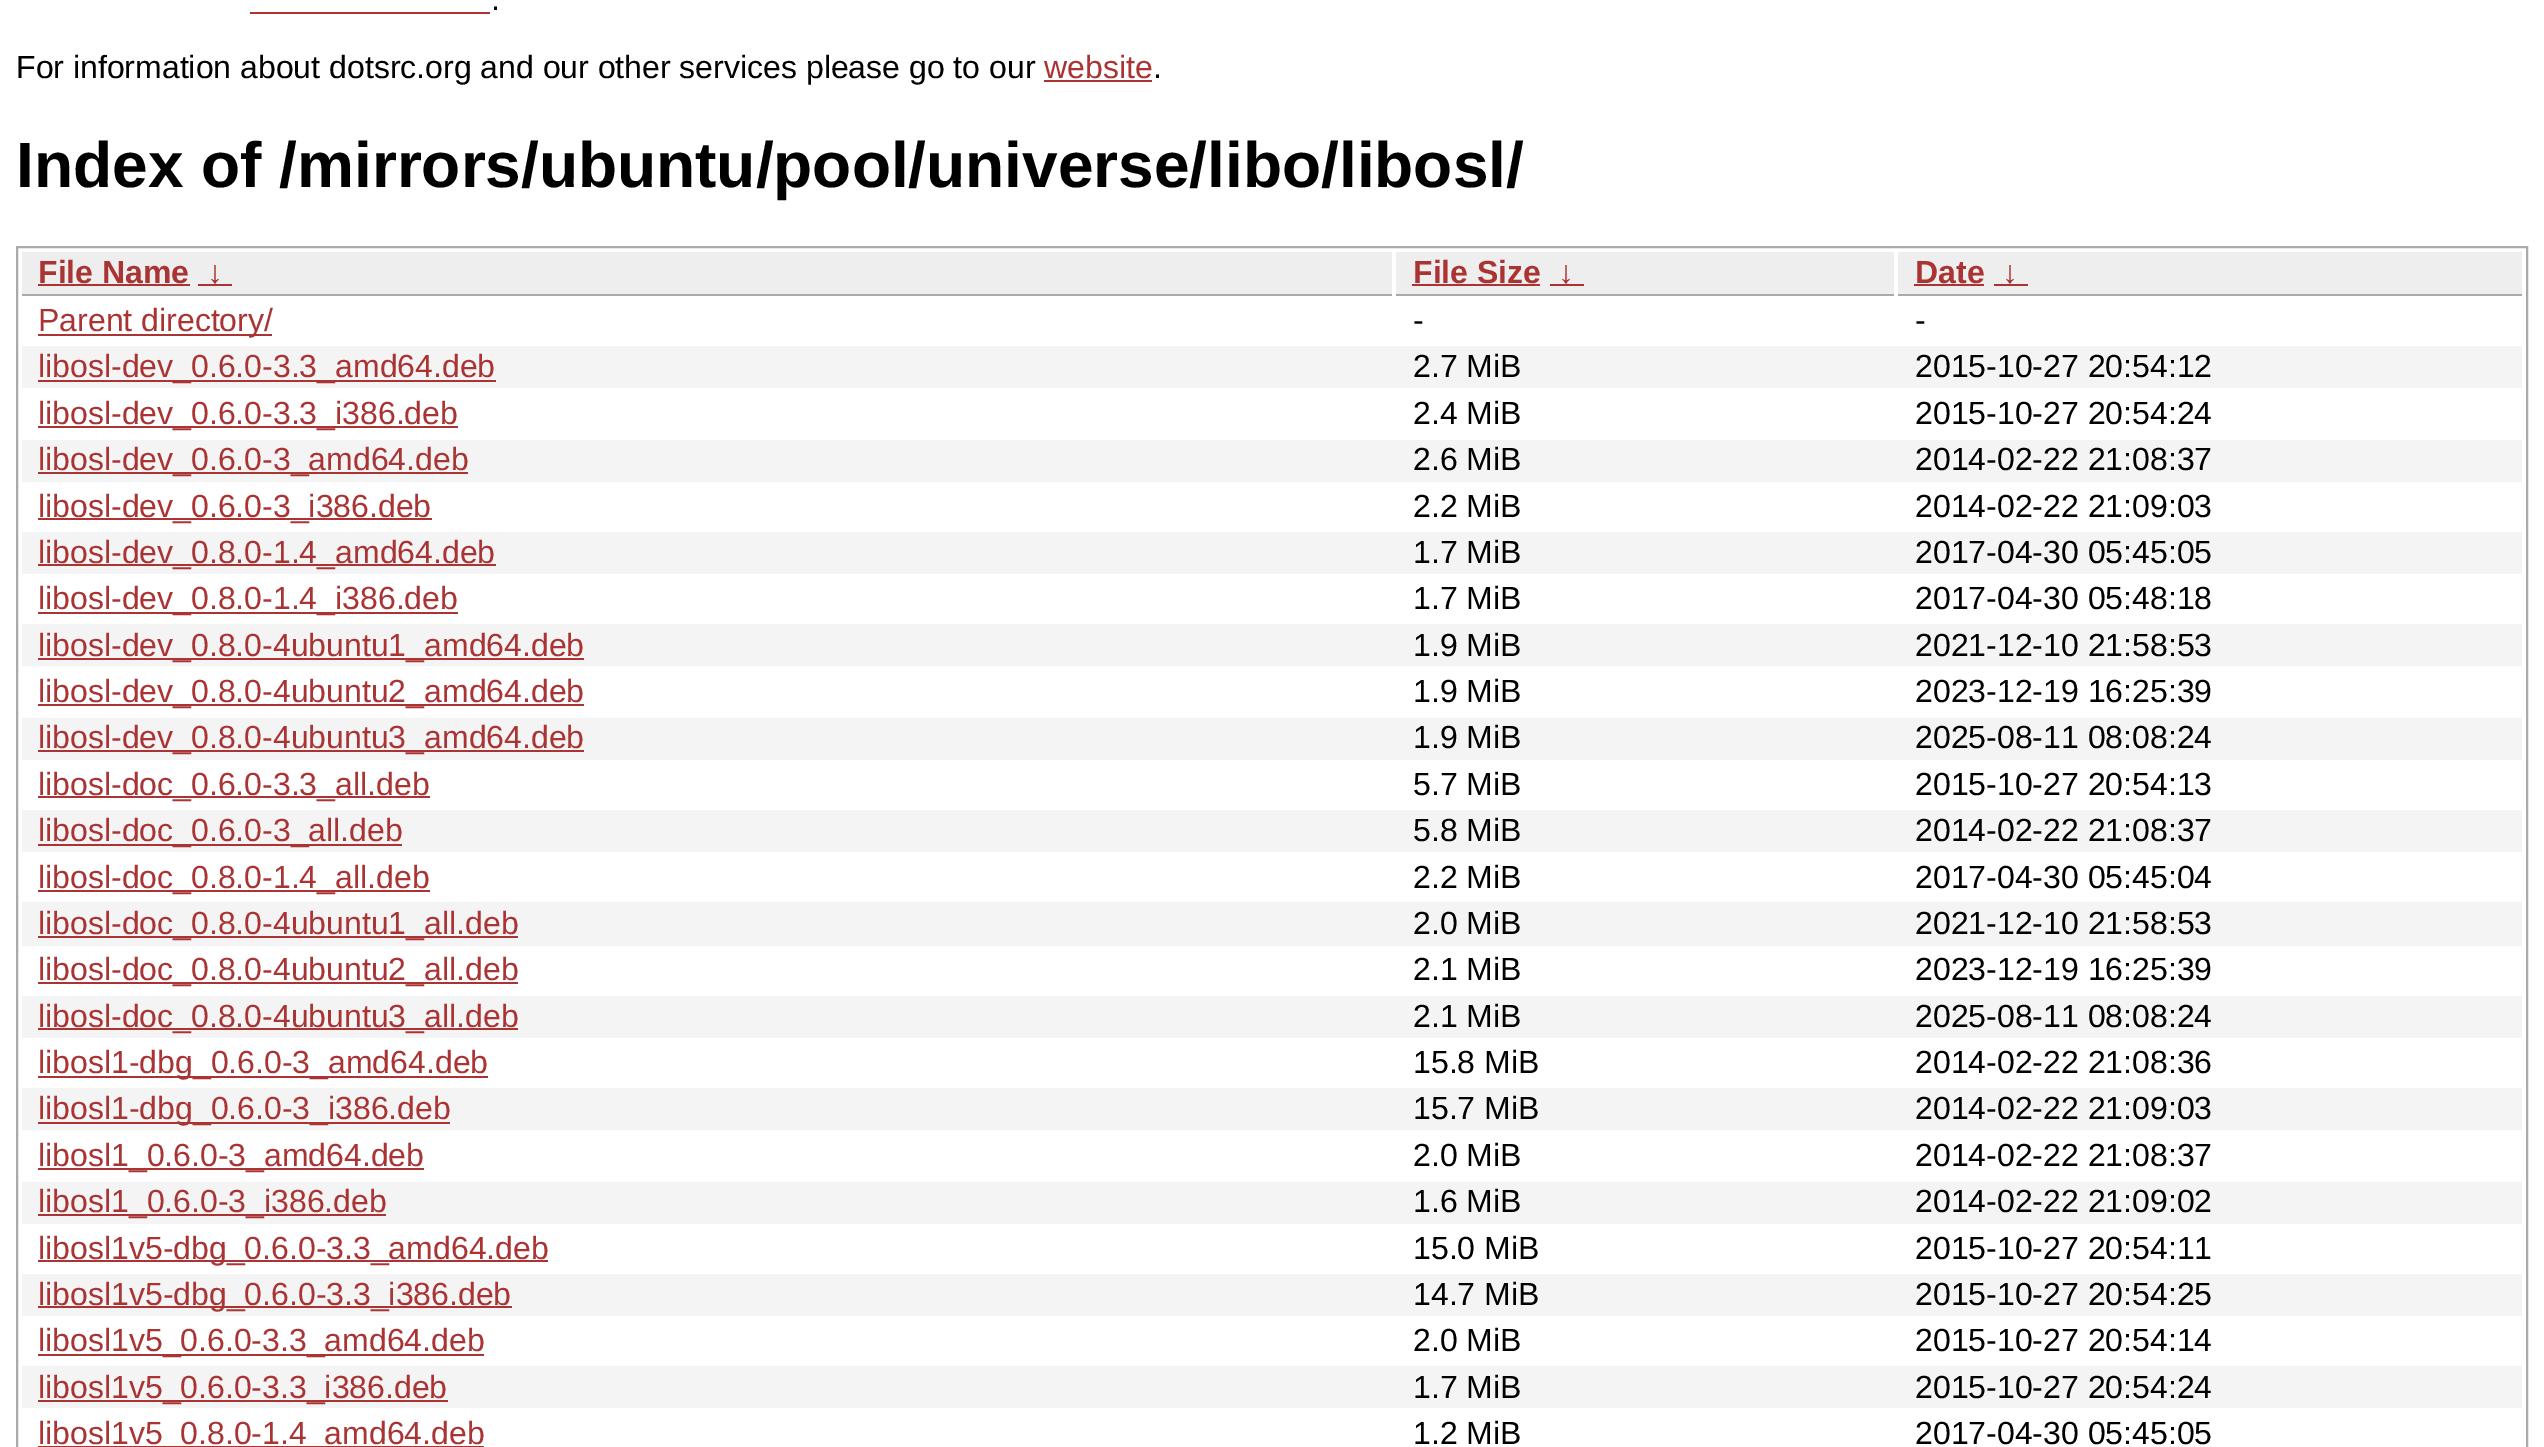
%!PS-Adobe-3.0
%%BoundingBox: 0 0 2544 1447
%%LanguageLevel: 3
%%Pages: 1
%%EndComments
%%BeginProlog
/w { setlinewidth } bind def
/fn { [ exch dup neg 0 0 3 -1 roll 0 0 ] selectfont } def
/tx { moveto show } def
/bx { rectfill } def
%%EndProlog
%%BeginSetup
<< /PageSize [2544 1447] >> setpagedevice
%%EndSetup
%%Page: 1 1
0 1447 translate 1 -1 scale
4 setmiterlimit
1 setgray
0 0 2544 1447 bx
/LiberationSans-Regular 32 fn
0 setgray
(.) 491 10 tx
0.667 0.2 0.2 setrgbcolor
250 12 240 2 bx
0 setgray
(For information about dotsrc.org and our other services please go to our) 16 78 tx
0.667 0.2 0.2 setrgbcolor
(website) 1044 78 tx
1044 80 108 2 bx
0 setgray
(.) 1153 78 tx
/LiberationSans-Bold 64 fn
(Index of /mirrors/ubuntu/pool/universe/libo/libosl/) 16 187 tx
0.667 setgray
2 w
17 247 2510 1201 rectstroke
0.933 setgray
22 252 1370 42 bx
0.667 setgray
22 294 1370 2 bx
/LiberationSans-Bold 32 fn
0.667 0.2 0.2 setrgbcolor
(File Name) 38 283 tx
38 284 152 2 bx
(↓) 207 283 tx
198 284 34 2 bx
0.933 setgray
1396 252 498 42 bx
0.667 setgray
1396 294 498 2 bx
0.667 0.2 0.2 setrgbcolor
(File Size) 1413 283 tx
1412 284 128 2 bx
(↓) 1558 283 tx
1550 284 34 2 bx
0.933 setgray
1898 252 624 42 bx
0.667 setgray
1898 294 624 2 bx
0.667 0.2 0.2 setrgbcolor
(Date) 1915 283 tx
1914 284 70 2 bx
(↓) 2002 283 tx
1994 284 34 2 bx
38 334 234 2 bx
/LiberationSans-Regular 32 fn
(Parent directory/) 38 331 tx
0 setgray
(-) 1413 331 tx
(-) 1915 331 tx
0.957 setgray
22 346 2500 42 bx
0.667 0.2 0.2 setrgbcolor
38 380 458 2 bx
(libosl-dev_0.6.0-3.3_amd64.deb) 38 377 tx
0 setgray
(2.7 MiB) 1413 377 tx
(2015-10-27 20:54:12) 1915 377 tx
0.667 0.2 0.2 setrgbcolor
38 426 420 2 bx
(libosl-dev_0.6.0-3.3_i386.deb) 38 424 tx
0 setgray
(2.4 MiB) 1413 424 tx
(2015-10-27 20:54:24) 1915 424 tx
0.957 setgray
22 440 2500 42 bx
0.667 0.2 0.2 setrgbcolor
38 472 430 2 bx
(libosl-dev_0.6.0-3_amd64.deb) 38 470 tx
0 setgray
(2.6 MiB) 1413 470 tx
(2014-02-22 21:08:37) 1915 470 tx
0.667 0.2 0.2 setrgbcolor
38 518 394 2 bx
(libosl-dev_0.6.0-3_i386.deb) 38 517 tx
0 setgray
(2.2 MiB) 1413 517 tx
(2014-02-22 21:09:03) 1915 517 tx
0.957 setgray
22 532 2500 42 bx
0.667 0.2 0.2 setrgbcolor
38 564 458 2 bx
(libosl-dev_0.8.0-1.4_amd64.deb) 38 563 tx
0 setgray
(1.7 MiB) 1413 563 tx
(2017-04-30 05:45:05) 1915 563 tx
0.667 0.2 0.2 setrgbcolor
38 612 420 2 bx
(libosl-dev_0.8.0-1.4_i386.deb) 38 609 tx
0 setgray
(1.7 MiB) 1413 609 tx
(2017-04-30 05:48:18) 1915 609 tx
0.957 setgray
22 624 2500 42 bx
0.667 0.2 0.2 setrgbcolor
38 658 546 2 bx
(libosl-dev_0.8.0-4ubuntu1_amd64.deb) 38 656 tx
0 setgray
(1.9 MiB) 1413 656 tx
(2021-12-10 21:58:53) 1915 656 tx
0.667 0.2 0.2 setrgbcolor
38 704 546 2 bx
(libosl-dev_0.8.0-4ubuntu2_amd64.deb) 38 702 tx
0 setgray
(1.9 MiB) 1413 702 tx
(2023-12-19 16:25:39) 1915 702 tx
0.957 setgray
22 718 2500 42 bx
0.667 0.2 0.2 setrgbcolor
38 750 546 2 bx
(libosl-dev_0.8.0-4ubuntu3_amd64.deb) 38 748 tx
0 setgray
(1.9 MiB) 1413 748 tx
(2025-08-11 08:08:24) 1915 748 tx
0.667 0.2 0.2 setrgbcolor
38 796 392 2 bx
(libosl-doc_0.6.0-3.3_all.deb) 38 795 tx
0 setgray
(5.7 MiB) 1413 795 tx
(2015-10-27 20:54:13) 1915 795 tx
0.957 setgray
22 810 2500 42 bx
0.667 0.2 0.2 setrgbcolor
38 844 364 2 bx
(libosl-doc_0.6.0-3_all.deb) 38 841 tx
0 setgray
(5.8 MiB) 1413 841 tx
(2014-02-22 21:08:37) 1915 841 tx
0.667 0.2 0.2 setrgbcolor
38 890 392 2 bx
(libosl-doc_0.8.0-1.4_all.deb) 38 888 tx
0 setgray
(2.2 MiB) 1413 888 tx
(2017-04-30 05:45:04) 1915 888 tx
0.957 setgray
22 902 2500 44 bx
0.667 0.2 0.2 setrgbcolor
38 936 480 2 bx
(libosl-doc_0.8.0-4ubuntu1_all.deb) 38 934 tx
0 setgray
(2.0 MiB) 1413 934 tx
(2021-12-10 21:58:53) 1915 934 tx
0.667 0.2 0.2 setrgbcolor
38 982 480 2 bx
(libosl-doc_0.8.0-4ubuntu2_all.deb) 38 980 tx
0 setgray
(2.1 MiB) 1413 980 tx
(2023-12-19 16:25:39) 1915 980 tx
0.957 setgray
22 996 2500 42 bx
0.667 0.2 0.2 setrgbcolor
38 1028 480 2 bx
(libosl-doc_0.8.0-4ubuntu3_all.deb) 38 1027 tx
0 setgray
(2.1 MiB) 1413 1027 tx
(2025-08-11 08:08:24) 1915 1027 tx
0.667 0.2 0.2 setrgbcolor
38 1076 450 2 bx
(libosl1-dbg_0.6.0-3_amd64.deb) 38 1073 tx
0 setgray
(15.8 MiB) 1413 1073 tx
(2014-02-22 21:08:36) 1915 1073 tx
0.957 setgray
22 1088 2500 42 bx
0.667 0.2 0.2 setrgbcolor
38 1122 412 2 bx
(libosl1-dbg_0.6.0-3_i386.deb) 38 1119 tx
0 setgray
(15.7 MiB) 1413 1119 tx
(2014-02-22 21:09:03) 1915 1119 tx
0.667 0.2 0.2 setrgbcolor
38 1168 386 2 bx
(libosl1_0.6.0-3_amd64.deb) 38 1166 tx
0 setgray
(2.0 MiB) 1413 1166 tx
(2014-02-22 21:08:37) 1915 1166 tx
0.957 setgray
22 1182 2500 42 bx
0.667 0.2 0.2 setrgbcolor
38 1214 348 2 bx
(libosl1_0.6.0-3_i386.deb) 38 1212 tx
0 setgray
(1.6 MiB) 1413 1212 tx
(2014-02-22 21:09:02) 1915 1212 tx
0.667 0.2 0.2 setrgbcolor
38 1260 510 2 bx
(libosl1v5-dbg_0.6.0-3.3_amd64.deb) 38 1259 tx
0 setgray
(15.0 MiB) 1413 1259 tx
(2015-10-27 20:54:11) 1915 1259 tx
0.957 setgray
22 1274 2500 42 bx
0.667 0.2 0.2 setrgbcolor
38 1306 474 2 bx
(libosl1v5-dbg_0.6.0-3.3_i386.deb) 38 1305 tx
0 setgray
(14.7 MiB) 1413 1305 tx
(2015-10-27 20:54:25) 1915 1305 tx
0.667 0.2 0.2 setrgbcolor
38 1354 446 2 bx
(libosl1v5_0.6.0-3.3_amd64.deb) 38 1351 tx
0 setgray
(2.0 MiB) 1413 1351 tx
(2015-10-27 20:54:14) 1915 1351 tx
0.957 setgray
22 1366 2500 42 bx
0.667 0.2 0.2 setrgbcolor
38 1400 410 2 bx
(libosl1v5_0.6.0-3.3_i386.deb) 38 1398 tx
0 setgray
(1.7 MiB) 1413 1398 tx
(2015-10-27 20:54:24) 1915 1398 tx
0.667 0.2 0.2 setrgbcolor
(libosl1v5_0.8.0-1.4_amd64.deb) 38 1444 tx
38 1446 446 1 bx
0 setgray
(1.2 MiB) 1413 1444 tx
(2017-04-30 05:45:05) 1915 1444 tx
showpage
%%EOF
